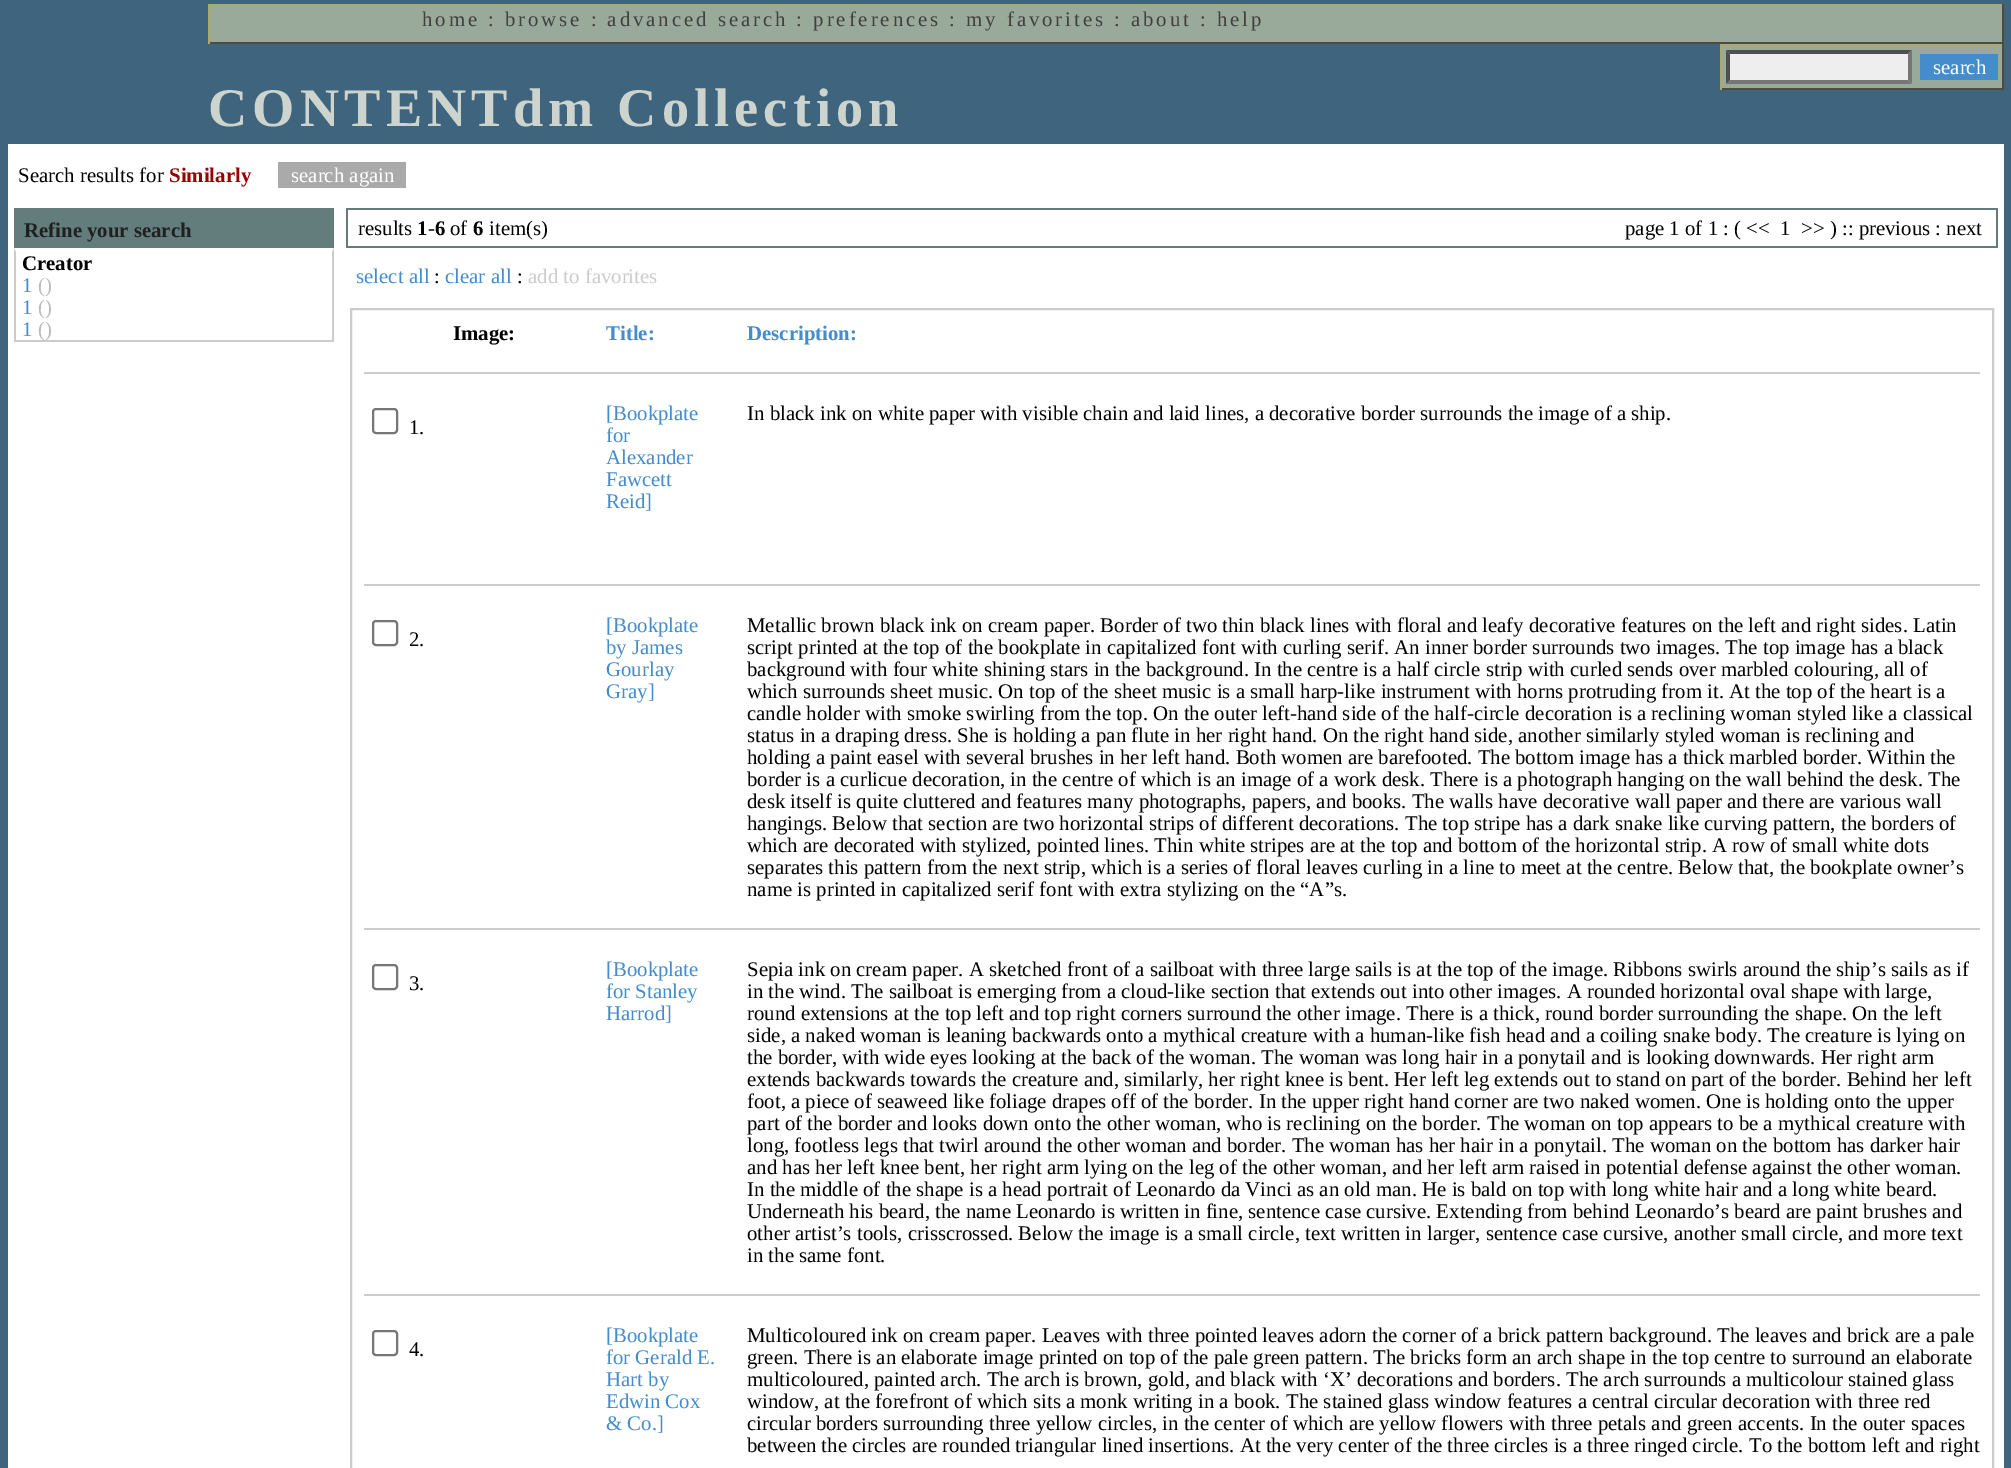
%!PS-Adobe-3.0
%%BoundingBox: 0 0 2011 1468
%%LanguageLevel: 3
%%Pages: 1
%%EndComments
%%BeginProlog
/m { moveto } bind def
/l { lineto } bind def
/h { closepath } bind def
/f { fill } bind def
/S { stroke } bind def
/w { setlinewidth } bind def
/fn { [ exch dup neg 0 0 3 -1 roll 0 0 ] selectfont } def
/tx { moveto show } def
/bx { rectfill } def
/rr { 5 dict begin { /r /h /w /y /x } { exch def } forall
  x r add y moveto x w add y 2 copy h add r arct x w add y h add x 1 index r arct
  x y h add x y r arct x y 2 copy exch w add exch r arct closepath end } def
%%EndProlog
%%BeginSetup
<< /PageSize [2011 1468] >> setpagedevice
%%EndSetup
%%Page: 1 1
0 1468 translate 1 -1 scale
4 setmiterlimit
1 setgray
0 0 2011 1468 bx
0.243 0.392 0.494 setrgbcolor
0 0 8 1468 bx
8 0 1996 144 bx
0.6 0.663 0.604 setrgbcolor
210 6 1792 36 bx
0.678 0.659 0.42 setrgbcolor
208 4 1796 2 bx
0.298 0.298 0.271 setrgbcolor
208 42 1772 2 bx
0.678 0.659 0.42 setrgbcolor
208 4 2 40 bx
/LiberationSerif-Regular 20.8 fn
0.251 setgray
422 26 m 2.93 0 (home : browse : advanced search : preferences : my favorites : about : help) ashow
0.298 0.298 0.271 setrgbcolor
2002 4 2 40 bx
1980 42 24 2 bx
0.6 0.663 0.604 setrgbcolor
1722 46 280 42 bx
0.678 0.659 0.42 setrgbcolor
1720 44 284 2 bx
0.298 0.298 0.271 setrgbcolor
1720 88 196 2 bx
0.678 0.659 0.42 setrgbcolor
1720 44 2 46 bx
0.933 setgray
1726 50 186 34 bx
0.31 setgray
1726 50 m 1912 50 l 1908 54 l 1730 54 l h f
0.463 setgray
1912 50 m 1912 84 l 1908 80 l 1908 54 l h f
1912 84 m 1726 84 l 1730 80 l 1908 80 l h f
0.31 setgray
1726 84 m 1726 50 l 1730 54 l 1730 80 l h f
0.298 0.298 0.271 setrgbcolor
2002 44 2 46 bx
1916 88 88 2 bx
0.267 0.549 0.796 setrgbcolor
1920 54 78 26 bx
1 setgray
(search) 1933 74 tx
/LiberationSerif-Bold 54.4 fn
0.804 0.827 0.804 setrgbcolor
208 126 m 5.1 0 (CONTENTdm Collection) ashow
0.243 0.392 0.494 setrgbcolor
2004 0 7 1468 bx
/LiberationSerif-Regular 20.8 fn
0 setgray
(Search results for) 18 182 tx
/LiberationSerif-Bold 20.8 fn
0.6 0 0 setrgbcolor
(Similarly) 169 182 tx
0.667 setgray
278 162 128 26 bx
/LiberationSerif-Regular 20.8 fn
1 setgray
(search again) 291 182 tx
0.384 0.49 0.486 setrgbcolor
14 208 320 40 bx
/LiberationSerif-Bold 20.8 fn
0.125 setgray
(Refine your search) 24 237 tx
0.8 setgray
334 248 m 334 342 l 332 340 l 332 252 l h f
14 340 320 2 bx
14 342 m 14 248 l 16 252 l 16 340 l h f
0 setgray
(Creator) 22 270 tx
/LiberationSerif-Regular 20.8 fn
0.267 0.549 0.796 setrgbcolor
(1) 22 292 tx
0.733 setgray
(\(\)) 38 292 tx
0.267 0.549 0.796 setrgbcolor
(1) 22 314 tx
0.733 setgray
(\(\)) 38 314 tx
0.267 0.549 0.796 setrgbcolor
(1) 22 336 tx
0.733 setgray
(\(\)) 38 336 tx
0.384 0.49 0.486 setrgbcolor
346 208 1652 2 bx
346 246 1636 2 bx
346 208 2 40 bx
0 setgray
(results) 358 235 tx
/LiberationSerif-Bold 20.8 fn
(1) 417 235 tx
/LiberationSerif-Regular 20.8 fn
(-) 428 235 tx
/LiberationSerif-Bold 20.8 fn
(6) 435 235 tx
/LiberationSerif-Regular 20.8 fn
(of) 450 235 tx
/LiberationSerif-Bold 20.8 fn
(6) 473 235 tx
/LiberationSerif-Regular 20.8 fn
(item\(s\)) 489 235 tx
(page 1 of 1 : \( <<) 1625 235 tx
(1) 1780 235 tx
(>> \) :: previous : next) 1801 235 tx
0.384 0.49 0.486 setrgbcolor
1996 208 2 40 bx
1982 246 16 2 bx
0.267 0.549 0.796 setrgbcolor
(select all) 356 283 tx
0 setgray
(:) 434 283 tx
0.267 0.549 0.796 setrgbcolor
(clear all) 445 283 tx
0 setgray
(:) 517 283 tx
0.8 setgray
(add to favorites) 528 283 tx
2 w
351 309 1642 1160 rectstroke
/LiberationSerif-Bold 20.8 fn
0 setgray
(Image:) 453 340 tx
0.267 0.549 0.796 setrgbcolor
(Title:) 606 340 tx
(Description:) 747 340 tx
0.8 setgray
364 372 1616 2 bx
/LiberationSerif-Regular 20.8 fn
0.267 0.549 0.796 setrgbcolor
([Bookplate) 606 420 tx
(for) 606 442 tx
(Alexander) 606 464 tx
(Fawcett) 606 486 tx
(Reid]) 606 508 tx
0 setgray
(In black ink on white paper with visible chain and laid lines, a decorative border surrounds the image of a ship.) 747 420 tx
0.463 setgray
373 409 24 24 3 rr S
0 setgray
(1.) 409 434 tx
0.8 setgray
364 584 1616 2 bx
0.463 setgray
373 621 24 24 3 rr S
0 setgray
(2.) 409 646 tx
0.267 0.549 0.796 setrgbcolor
([Bookplate) 606 632 tx
(by James) 606 654 tx
(Gourlay) 606 676 tx
(Gray]) 606 698 tx
0 setgray
(Metallic brown black ink on cream paper. Border of two thin black lines with floral and leafy decorative features on the left and right sides. Latin) 747 632 tx
(script printed at the top of the bookplate in capitalized font with curling serif. An inner border surrounds two images. The top image has a black) 747 654 tx
(background with four white shining stars in the background. In the centre is a half circle strip with curled sends over marbled colouring, all of) 747 676 tx
(which surrounds sheet music. On top of the sheet music is a small harp-like instrument with horns protruding from it. At the top of the heart is a) 747 698 tx
(candle holder with smoke swirling from the top. On the outer left-hand side of the half-circle decoration is a reclining woman styled like a classical) 747 720 tx
(status in a draping dress. She is holding a pan flute in her right hand. On the right hand side, another similarly styled woman is reclining and) 747 742 tx
(holding a paint easel with several brushes in her left hand. Both women are barefooted. The bottom image has a thick marbled border. Within the) 747 764 tx
(border is a curlicue decoration, in the centre of which is an image of a work desk. There is a photograph hanging on the wall behind the desk. The) 747 786 tx
(desk itself is quite cluttered and features many photographs, papers, and books. The walls have decorative wall paper and there are various wall) 747 808 tx
(hangings. Below that section are two horizontal strips of different decorations. The top stripe has a dark snake like curving pattern, the borders of) 747 830 tx
(which are decorated with stylized, pointed lines. Thin white stripes are at the top and bottom of the horizontal strip. A row of small white dots) 747 852 tx
(separates this pattern from the next strip, which is a series of floral leaves curling in a line to meet at the centre. Below that, the bookplate owner’s) 747 874 tx
(name is printed in capitalized serif font with extra stylizing on the “A”s.) 747 896 tx
0.8 setgray
364 928 1616 2 bx
0.463 setgray
373 965 24 24 3 rr S
0 setgray
(3.) 409 990 tx
0.267 0.549 0.796 setrgbcolor
([Bookplate) 606 976 tx
(for Stanley) 606 998 tx
(Harrod]) 606 1020 tx
0 setgray
(Sepia ink on cream paper. A sketched front of a sailboat with three large sails is at the top of the image. Ribbons swirls around the ship’s sails as if) 747 976 tx
(in the wind. The sailboat is emerging from a cloud-like section that extends out into other images. A rounded horizontal oval shape with large,) 747 998 tx
(round extensions at the top left and top right corners surround the other image. There is a thick, round border surrounding the shape. On the left) 747 1020 tx
(side, a naked woman is leaning backwards onto a mythical creature with a human-like fish head and a coiling snake body. The creature is lying on) 747 1042 tx
(the border, with wide eyes looking at the back of the woman. The woman was long hair in a ponytail and is looking downwards. Her right arm) 747 1064 tx
(extends backwards towards the creature and, similarly, her right knee is bent. Her left leg extends out to stand on part of the border. Behind her left) 747 1086 tx
(foot, a piece of seaweed like foliage drapes off of the border. In the upper right hand corner are two naked women. One is holding onto the upper) 747 1108 tx
(part of the border and looks down onto the other woman, who is reclining on the border. The woman on top appears to be a mythical creature with) 747 1130 tx
(long, footless legs that twirl around the other woman and border. The woman has her hair in a ponytail. The woman on the bottom has darker hair) 747 1152 tx
(and has her left knee bent, her right arm lying on the leg of the other woman, and her left arm raised in potential defense against the other woman.) 747 1174 tx
(In the middle of the shape is a head portrait of Leonardo da Vinci as an old man. He is bald on top with long white hair and a long white beard.) 747 1196 tx
(Underneath his beard, the name Leonardo is written in fine, sentence case cursive. Extending from behind Leonardo’s beard are paint brushes and) 747 1218 tx
(other artist’s tools, crisscrossed. Below the image is a small circle, text written in larger, sentence case cursive, another small circle, and more text) 747 1240 tx
(in the same font.) 747 1262 tx
0.8 setgray
364 1294 1616 2 bx
0.463 setgray
373 1331 24 24 3 rr S
0 setgray
(4.) 409 1356 tx
0.267 0.549 0.796 setrgbcolor
([Bookplate) 606 1342 tx
(for Gerald E.) 606 1364 tx
(Hart by) 606 1386 tx
(Edwin Cox) 606 1408 tx
(& Co.]) 606 1430 tx
0 setgray
(Multicoloured ink on cream paper. Leaves with three pointed leaves adorn the corner of a brick pattern background. The leaves and brick are a pale) 747 1342 tx
(green. There is an elaborate image printed on top of the pale green pattern. The bricks form an arch shape in the top centre to surround an elaborate) 747 1364 tx
(multicoloured, painted arch. The arch is brown, gold, and black with ‘X’ decorations and borders. The arch surrounds a multicolour stained glass) 747 1386 tx
(window, at the forefront of which sits a monk writing in a book. The stained glass window features a central circular decoration with three red) 747 1408 tx
(circular borders surrounding three yellow circles, in the center of which are yellow flowers with three petals and green accents. In the outer spaces) 747 1430 tx
(between the circles are rounded triangular lined insertions. At the very center of the three circles is a three ringed circle. To the bottom left and right) 747 1452 tx
showpage
%%EOF
